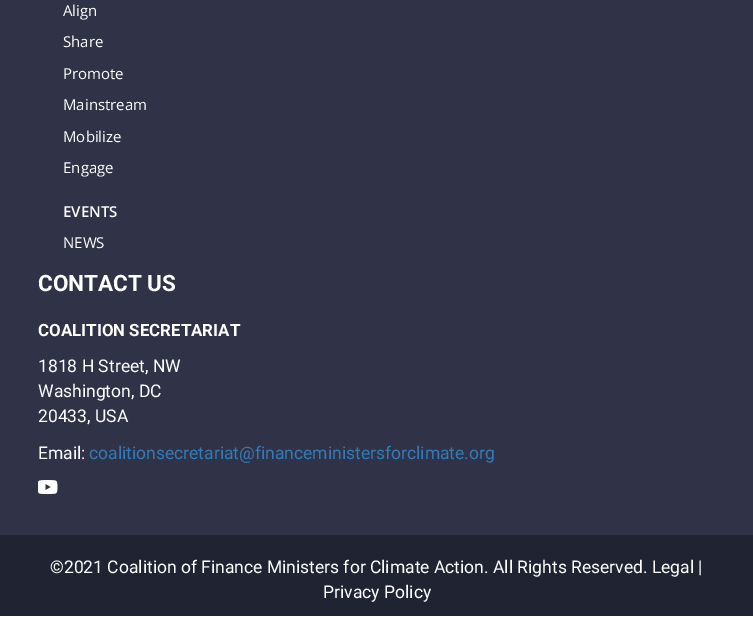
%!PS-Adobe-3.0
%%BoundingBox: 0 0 753 617
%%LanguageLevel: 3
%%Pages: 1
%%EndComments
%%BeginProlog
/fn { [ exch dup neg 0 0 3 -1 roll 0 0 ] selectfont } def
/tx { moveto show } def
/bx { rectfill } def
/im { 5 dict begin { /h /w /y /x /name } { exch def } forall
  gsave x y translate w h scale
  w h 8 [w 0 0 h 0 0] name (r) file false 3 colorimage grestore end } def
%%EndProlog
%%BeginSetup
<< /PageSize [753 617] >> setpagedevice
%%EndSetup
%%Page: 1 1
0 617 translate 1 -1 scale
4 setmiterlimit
1 setgray
0 0 753 617 bx
0.188 0.196 0.278 setrgbcolor
0 0 753 535 bx
/OpenSans-Regular 15 fn
1 setgray
(Align) 63 16 tx
(Share) 63 47 tx
(Promote) 63 79 tx
(Mainstream) 63 110 tx
(Mobilize) 63 142 tx
(Engage) 63 173 tx
/OpenSans-SemiBold 15 fn
(EVENTS) 63 217 tx
/OpenSans-Regular 15 fn
(NEWS) 63 248 tx
/Roboto-Bold 22.5 fn
(CONTACT US) 38 291 tx
/Roboto-Bold 16.9 fn
(COALITION SECRETARIAT) 38 336 tx
/Roboto-Regular 17.5 fn
(1818 H Street, NW) 38 372 tx
(Washington, DC) 38 397 tx
(20433, USA) 38 422 tx
(Email:) 38 459 tx
0.2 0.478 0.718 setrgbcolor
(coalitionsecretariat@financeministersforclimate.org) 89 459 tx
(image0.raw) 38 480 20 15 im
0.125 0.137 0.196 setrgbcolor
0 535 753 81 bx
1 setgray
(©2021 Coalition of Finance Ministers for Climate Action. All Rights Reserved. Legal |) 50 573 tx
(Privacy Policy) 323 598 tx
showpage
%%EOF
